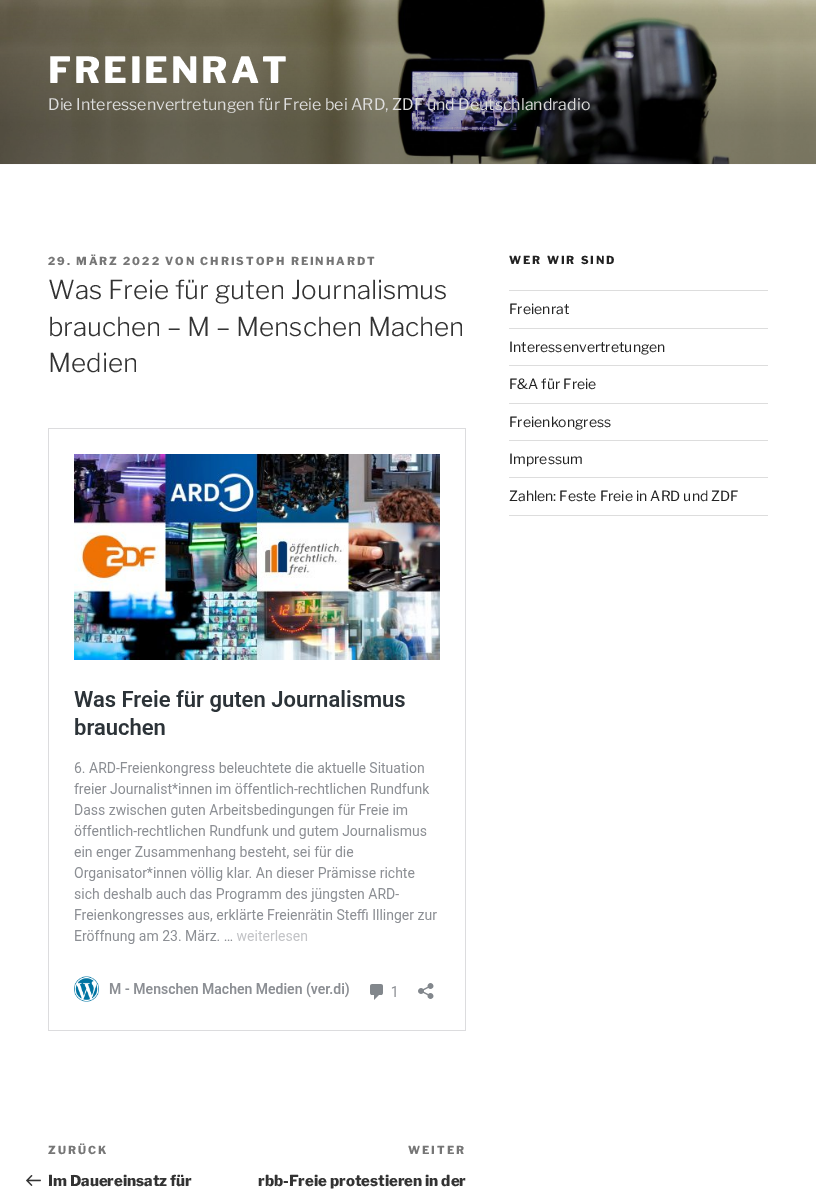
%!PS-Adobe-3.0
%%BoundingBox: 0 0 816 1202
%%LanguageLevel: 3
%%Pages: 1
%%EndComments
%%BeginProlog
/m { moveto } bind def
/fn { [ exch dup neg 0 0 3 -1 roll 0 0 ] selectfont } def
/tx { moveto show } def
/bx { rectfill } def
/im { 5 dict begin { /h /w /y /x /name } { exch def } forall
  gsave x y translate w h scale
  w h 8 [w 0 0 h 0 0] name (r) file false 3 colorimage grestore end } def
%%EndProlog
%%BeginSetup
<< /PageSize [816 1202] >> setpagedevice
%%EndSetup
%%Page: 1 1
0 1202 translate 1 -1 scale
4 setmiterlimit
1 setgray
0 0 816 1202 bx
0.98 setgray
0 164 816 1 bx
(image0.raw) 0 0 816 164 im
/LibreFranklin-Thin 36 fn
1 setgray
48 83 m 2.9 0 (FREIENRAT) ashow
/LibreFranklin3-Thin 16 fn
0.867 0.867 0.863 setrgbcolor
(Die Interessenvertretungen für Freie bei ARD, ZDF und Deutschlandradio) 48 110 tx
/LibreFranklin-Thin 11 fn
0.463 setgray
48 265 m 2 0 (29. MÄRZ 2022 VON CHRISTOPH REINHARDT) ashow
/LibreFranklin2-Thin 26 fn
0.2 setgray
(Was Freie für guten Journalismus) 48 299 tx
(brauchen – M – Menschen Machen) 48 336 tx
(Medien) 48 372 tx
(image1.raw) 48 428 418 603 im
/LibreFranklin-Thin 11 fn
0.463 setgray
48 1154 m 2 0 (ZURÜCK) ashow
(image2.raw) 26 1175 15 11 im
/LibreFranklin-Thin 15 fn
0.2 setgray
(Im Dauereinsatz für) 48 1186 tx
/LibreFranklin-Thin 11 fn
0.463 setgray
408 1154 m 2 0 (WEITER) ashow
/LibreFranklin-Thin 15 fn
0.2 setgray
(rbb-Freie protestieren in der) 258 1186 tx
/LibreFranklin-Thin 11 fn
0.133 setgray
509 264 m 2 0 (WER WIR SIND) ashow
0.867 setgray
509 290 259 1 bx
509 328 259 1 bx
/LibreFranklin3-Thin 14 fn
0.133 setgray
(Freienrat) 509 314 tx
0.867 setgray
509 365 259 1 bx
0.133 setgray
(Interessenvertretungen) 509 352 tx
0.867 setgray
509 403 259 1 bx
0.133 setgray
(F&A für Freie) 509 389 tx
0.867 setgray
509 440 259 1 bx
0.133 setgray
(Freienkongress) 509 427 tx
0.867 setgray
509 477 259 1 bx
0.133 setgray
(Impressum) 509 464 tx
0.867 setgray
509 515 259 1 bx
0.133 setgray
(Zahlen: Feste Freie in ARD und ZDF) 509 501 tx
showpage
%%EOF
